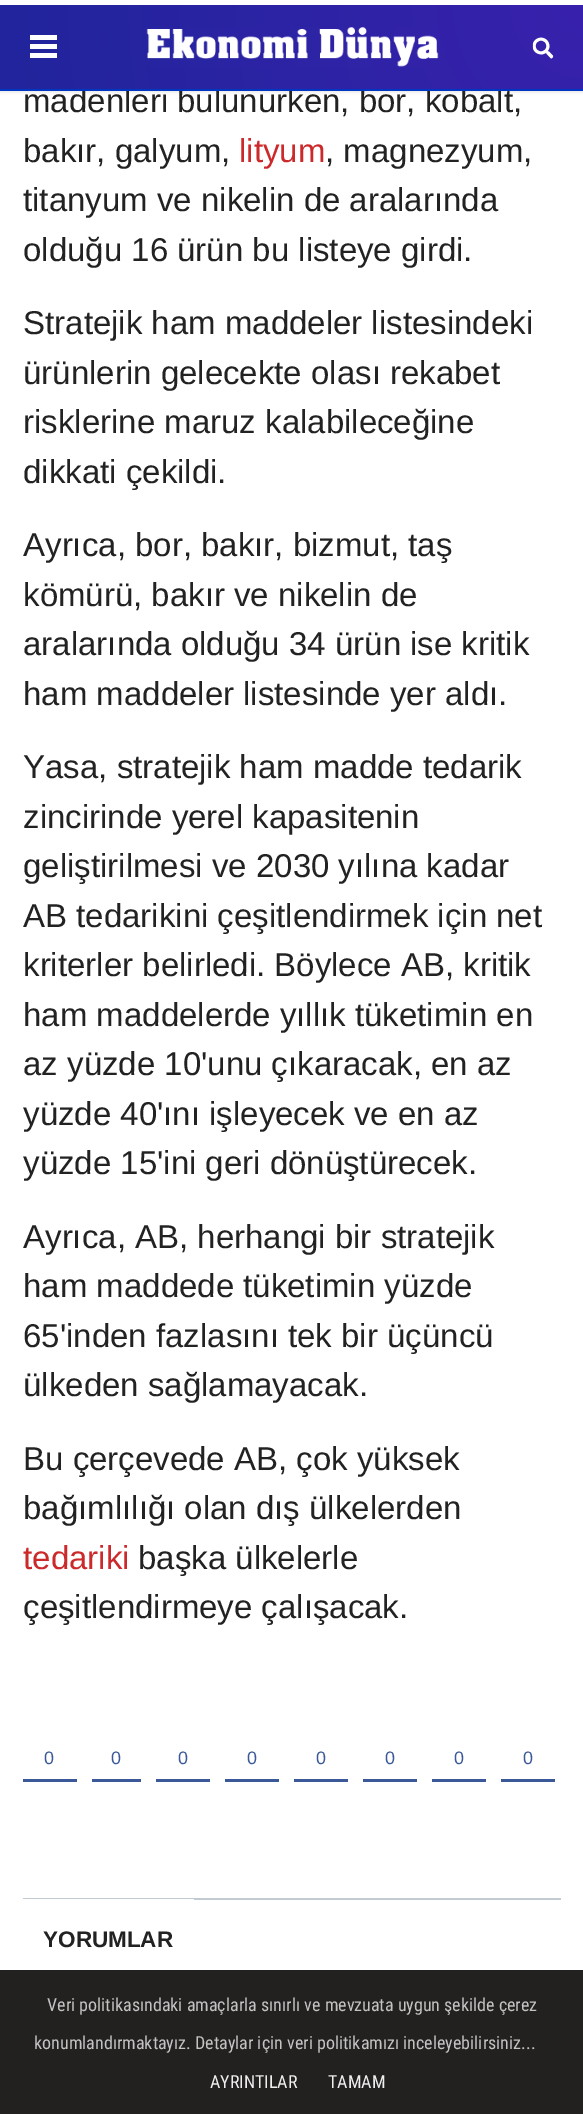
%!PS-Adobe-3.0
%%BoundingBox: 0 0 583 2114
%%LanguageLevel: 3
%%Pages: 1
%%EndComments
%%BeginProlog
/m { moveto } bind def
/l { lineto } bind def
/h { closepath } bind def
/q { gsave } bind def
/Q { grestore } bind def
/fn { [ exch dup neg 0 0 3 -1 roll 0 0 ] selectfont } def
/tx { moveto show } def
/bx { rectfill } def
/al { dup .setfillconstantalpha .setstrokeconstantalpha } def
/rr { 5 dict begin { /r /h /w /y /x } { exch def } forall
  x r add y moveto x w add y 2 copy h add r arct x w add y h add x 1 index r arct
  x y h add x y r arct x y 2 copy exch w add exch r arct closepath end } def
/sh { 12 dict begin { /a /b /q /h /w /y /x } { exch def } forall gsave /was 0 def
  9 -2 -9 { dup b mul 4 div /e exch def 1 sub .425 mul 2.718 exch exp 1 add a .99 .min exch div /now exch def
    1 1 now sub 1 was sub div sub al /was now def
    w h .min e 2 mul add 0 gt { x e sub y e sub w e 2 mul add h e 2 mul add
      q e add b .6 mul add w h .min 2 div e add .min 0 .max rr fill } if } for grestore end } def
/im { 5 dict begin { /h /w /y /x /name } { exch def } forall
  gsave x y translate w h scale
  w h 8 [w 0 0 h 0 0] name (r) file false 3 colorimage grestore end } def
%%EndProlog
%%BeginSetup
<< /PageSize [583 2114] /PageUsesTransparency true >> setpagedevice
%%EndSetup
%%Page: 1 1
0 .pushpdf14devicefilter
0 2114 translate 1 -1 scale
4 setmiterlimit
1 setgray
0 0 583 2114 bx
0.137 0.125 0.125 setrgbcolor
0 1970 583 144 bx
0 setgray
0 2 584 90 0 1.5 0.1 sh
/LiberationSans-Regular 33 fn
0.133 setgray
(madenleri bulunurken, bor, kobalt,) 23 112 tx
q 0 5 m 583 5 l 583 89 l 0 89 l h clip newpath 584 4.5 translate 590 590 scale
<< /ShadingType 3 /ColorSpace /DeviceRGB /Coords [0 0 0 0 0 1] /Extend [true true] /Function << /FunctionType 2 /Domain [0 1] /C0 [0.22 0.129 0.678] /C1 [0.129 0.145 0.612] /N 1 >> >> shfill Q
1 setgray
0 0 583 5 bx
0 0.216 0.761 setrgbcolor
0 89 583 2 bx
1 setgray
30 35 27 5 bx
30 44 27 5 bx
30 53 27 5 bx
(image0.raw) 146 27 293 40 im
(image1.raw) 532 37 22 22 im
0.133 setgray
(bakır, galyum,) 23 162 tx
0.8 0.161 0.169 setrgbcolor
(lityum) 239 162 tx
0.133 setgray
(, magnezyum,) 325 162 tx
(titanyum ve nikelin de aralarında) 23 211 tx
(olduğu 16 ürün bu listeye girdi.) 23 261 tx
(Stratejik ham maddeler listesindeki) 23 334 tx
(ürünlerin gelecekte olası rekabet) 23 384 tx
(risklerine maruz kalabileceğine) 23 433 tx
(dikkati çekildi.) 23 483 tx
(Ayrıca, bor, bakır, bizmut, taş) 23 556 tx
(kömürü, bakır ve nikelin de) 23 606 tx
(aralarında olduğu 34 ürün ise kritik) 23 655 tx
(ham maddeler listesinde yer aldı.) 23 705 tx
(Yasa, stratejik ham madde tedarik) 23 778 tx
(zincirinde yerel kapasitenin) 23 828 tx
(geliştirilmesi ve 2030 yılına kadar) 23 877 tx
(AB tedarikini çeşitlendirmek için net) 23 927 tx
(kriterler belirledi. Böylece AB, kritik) 23 976 tx
(ham maddelerde yıllık tüketimin en) 23 1026 tx
(az yüzde 10'unu çıkaracak, en az) 23 1075 tx
(yüzde 40'ını işleyecek ve en az) 23 1125 tx
(yüzde 15'ini geri dönüştürecek.) 23 1174 tx
(Ayrıca, AB, herhangi bir stratejik) 23 1248 tx
(ham maddede tüketimin yüzde) 23 1297 tx
(65'inden fazlasını tek bir üçüncü) 23 1347 tx
(ülkeden sağlamayacak.) 23 1396 tx
(Bu çerçevede AB, çok yüksek) 23 1470 tx
(bağımlılığı olan dış ülkelerden) 23 1519 tx
0.8 0.161 0.169 setrgbcolor
(tedariki) 23 1569 tx
0.133 setgray
(başka ülkelerle) 138 1569 tx
(çeşitlendirmeye çalışacak.) 23 1618 tx
0.231 0.349 0.596 setrgbcolor
23 1779 54 3 bx
/LiberationSans-Regular 18 fn
(0) 44 1764 tx
92 1779 49 3 bx
(0) 111 1764 tx
156 1779 54 3 bx
(0) 178 1764 tx
225 1779 54 3 bx
(0) 247 1764 tx
294 1779 54 3 bx
(0) 316 1764 tx
363 1779 54 3 bx
(0) 385 1764 tx
432 1779 54 3 bx
(0) 454 1764 tx
501 1779 54 3 bx
(0) 523 1764 tx
0.765 0.796 0.824 setrgbcolor
23 1898 538 2 bx
1 setgray
23 1899 171 1 bx
/LiberationSans-Bold 22.5 fn
0.133 setgray
(YORUMLAR) 43 1947 tx
/RobotoCondensed-Regular 18 fn
0.769 0.765 0.765 setrgbcolor
(Veri politikasındaki amaçlarla sınırlı ve mevzuata uygun şekilde çerez) 47 2011 tx
(konumlandırmaktayız. Detaylar için veri politikamızı inceleyebilirsiniz...) 34 2049 tx
0.937 setgray
(AYRINTILAR) 210 2088 tx
(TAMAM) 328 2088 tx
.poppdf14devicefilter showpage
%%EOF
